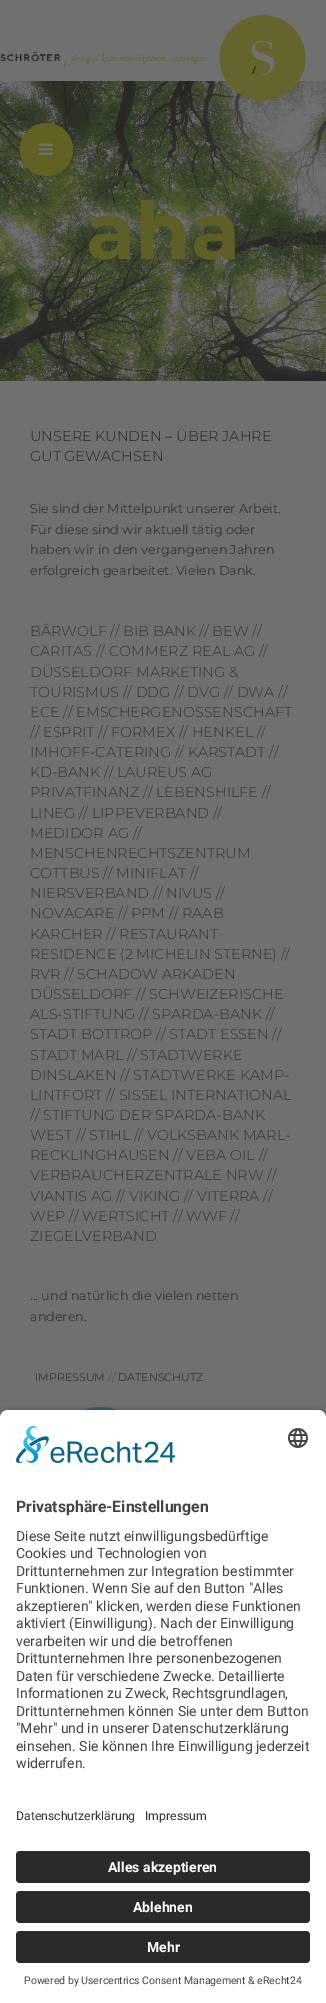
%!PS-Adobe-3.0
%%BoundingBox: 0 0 326 2003
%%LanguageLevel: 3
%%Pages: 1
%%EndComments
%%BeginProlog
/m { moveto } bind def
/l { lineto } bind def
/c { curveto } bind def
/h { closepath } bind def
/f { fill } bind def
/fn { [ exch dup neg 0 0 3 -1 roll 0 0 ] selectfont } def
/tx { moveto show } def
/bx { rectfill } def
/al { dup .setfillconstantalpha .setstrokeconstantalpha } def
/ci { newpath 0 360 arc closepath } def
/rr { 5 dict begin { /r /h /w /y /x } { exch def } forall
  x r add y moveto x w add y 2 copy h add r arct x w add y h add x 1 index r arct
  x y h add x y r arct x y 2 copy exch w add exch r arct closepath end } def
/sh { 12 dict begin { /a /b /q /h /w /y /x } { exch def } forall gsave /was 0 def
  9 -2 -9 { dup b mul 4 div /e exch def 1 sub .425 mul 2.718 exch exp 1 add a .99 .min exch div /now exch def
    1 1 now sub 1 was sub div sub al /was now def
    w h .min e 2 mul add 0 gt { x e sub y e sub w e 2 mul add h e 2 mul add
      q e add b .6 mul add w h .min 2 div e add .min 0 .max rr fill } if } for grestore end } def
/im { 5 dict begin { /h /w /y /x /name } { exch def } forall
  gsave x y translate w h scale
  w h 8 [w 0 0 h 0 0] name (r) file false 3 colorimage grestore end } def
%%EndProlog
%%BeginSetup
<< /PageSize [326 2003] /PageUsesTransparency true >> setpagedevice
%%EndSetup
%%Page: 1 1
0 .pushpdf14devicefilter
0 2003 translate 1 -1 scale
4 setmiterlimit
0.439 setgray
0 0 326 2003 bx
(image2.raw) 0 81 326 300 im
(image0.raw) 0 15 306 86 im
0.38 0.38 0.141 setrgbcolor
46.5 149.5 26.5 ci f
(image1.raw) 39 143 14 12 im
/Montserrat-Bold 80 fn
0.369 0.373 0.149 setrgbcolor
(aha) 86 259 tx
/Montserrat-Light 14.4 fn
0.141 setgray
(UNSERE KUNDEN – ÜBER JAHRE) 30 441 tx
(GUT GEWACHSEN) 30 461 tx
/Montserrat-Regular 12.75 fn
0.2 setgray
(Sie sind der Mittelpunkt unserer Arbeit.) 30 513 tx
(Für diese sind wir aktuell tätig oder) 30 534 tx
(haben wir in den vergangenen Jahren) 30 554 tx
(erfolgreich gearbeitet. Vielen Dank.) 30 575 tx
/Montserrat-Light 14.4 fn
(BÄRWOLF // BIB BANK // BEW //) 30 636 tx
(CARITAS // COMMERZ REAL AG //) 30 656 tx
(DÜSSELDORF MARKETING &) 30 677 tx
(TOURISMUS // DDG // DVG // DWA //) 30 697 tx
(ECE // EMSCHERGENOSSENSCHAFT) 30 717 tx
(// ESPRIT // FORMEX // HENKEL //) 30 737 tx
(IMHOFF-CATERING // KARSTADT //) 30 757 tx
(KD-BANK // LAUREUS AG) 30 777 tx
(PRIVATFINANZ // LEBENSHILFE //) 30 797 tx
(LINEG // LIPPEVERBAND //) 30 818 tx
(MEDIDOR AG //) 30 838 tx
(MENSCHENRECHTSZENTRUM) 30 858 tx
(COTTBUS // MINIFLAT //) 30 878 tx
(NIERSVERBAND // NIVUS //) 30 898 tx
(NOVACARE // PPM // RAAB) 30 918 tx
(KARCHER // RESTAURANT) 30 939 tx
(RESIDENCE \(2 MICHELIN STERNE\) //) 30 959 tx
(RVR // SCHADOW ARKADEN) 30 979 tx
(DÜSSELDORF // SCHWEIZERISCHE) 30 999 tx
(ALS-STIFTUNG // SPARDA-BANK //) 30 1019 tx
(STADT BOTTROP // STADT ESSEN //) 30 1039 tx
(STADT MARL // STADTWERKE) 30 1060 tx
(DINSLAKEN // STADTWERKE KAMP-) 30 1080 tx
(LINTFORT // SISSEL INTERNATIONAL) 30 1100 tx
(// STIFTUNG DER SPARDA-BANK) 30 1120 tx
(WEST // STIHL // VOLKSBANK MARL-) 30 1140 tx
(RECKLINGHAUSEN // VEBA OIL //) 30 1160 tx
(VERBRAUCHERZENTRALE NRW //) 30 1180 tx
(VIANTIS AG // VIKING // VITERRA //) 30 1201 tx
(WEP // WERTSICHT // WWF //) 30 1221 tx
(ZIEGELVERBAND) 30 1241 tx
/Montserrat-Regular 12.75 fn
(... und natürlich die vielen netten) 30 1300 tx
(anderen.) 30 1321 tx
/Montserrat-Regular 11 fn
(IMPRESSUM) 35 1381 tx
0.322 setgray
(//) 108 1381 tx
0.2 setgray
(DATENSCHUTZ) 118 1381 tx
(image3.raw) 82 1407 36 3 im
0 setgray
0 1413 326 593 8 3.5 0.8 sh
1 setgray
8 1410 m 318 1410 l 322.5 1410 326 1413.5 326 1418 c 326 1793 l 0 1793 l 0 1418 l 0 1413.5 3.5 1410 8 1410 c h f
(image4.raw) 16 1426 160 37 im
(image5.raw) 288 1428 20 20 im
/Roboto-Bold 15.75 fn
0.267 setgray
(Privatsphäre-Einstellungen) 16 1512 tx
/Roboto-Regular 14 fn
(Diese Seite nutzt einwilligungsbedürftige) 16 1541 tx
(Cookies und Technologien von) 16 1558 tx
(Drittunternehmen zur Integration bestimmter) 16 1576 tx
(Funktionen. Wenn Sie auf den Button "Alles) 16 1593 tx
(akzeptieren" klicken, werden diese Funktionen) 16 1611 tx
(aktiviert \(Einwilligung\). Nach der Einwilligung) 16 1628 tx
(verarbeiten wir und die betroffenen) 16 1646 tx
(Drittunternehmen Ihre personenbezogenen) 16 1663 tx
(Daten für verschiedene Zwecke. Detaillierte) 16 1681 tx
(Informationen zu Zweck, Rechtsgrundlagen,) 16 1698 tx
(Drittunternehmen können Sie unter dem Button) 16 1716 tx
("Mehr" und in unserer Datenschutzerklärung) 16 1733 tx
(einsehen. Sie können Ihre Einwilligung jederzeit) 16 1751 tx
(widerrufen.) 16 1768 tx
1 setgray
0 1793 326 210 bx
/Roboto-Regular 12.25 fn
0.2 setgray
(Datenschutzerklärung) 16 1820 tx
(Impressum) 145 1820 tx
0.161 0.165 0.169 setrgbcolor
16 1851 294 32 4 rr f
/Roboto-Bold 14 fn
1 setgray
(Alles akzeptieren) 108 1872 tx
0.161 0.165 0.169 setrgbcolor
16 1891 294 32 4 rr f
1 setgray
(Ablehnen) 133 1912 tx
0.161 0.165 0.169 setrgbcolor
16 1931 294 32 4 rr f
1 setgray
(Mehr) 147 1952 tx
/Roboto-Regular 10.5 fn
0.267 setgray
(Powered by Usercentrics Consent Management & eRecht24) 24 1984 tx
.poppdf14devicefilter showpage
%%EOF
